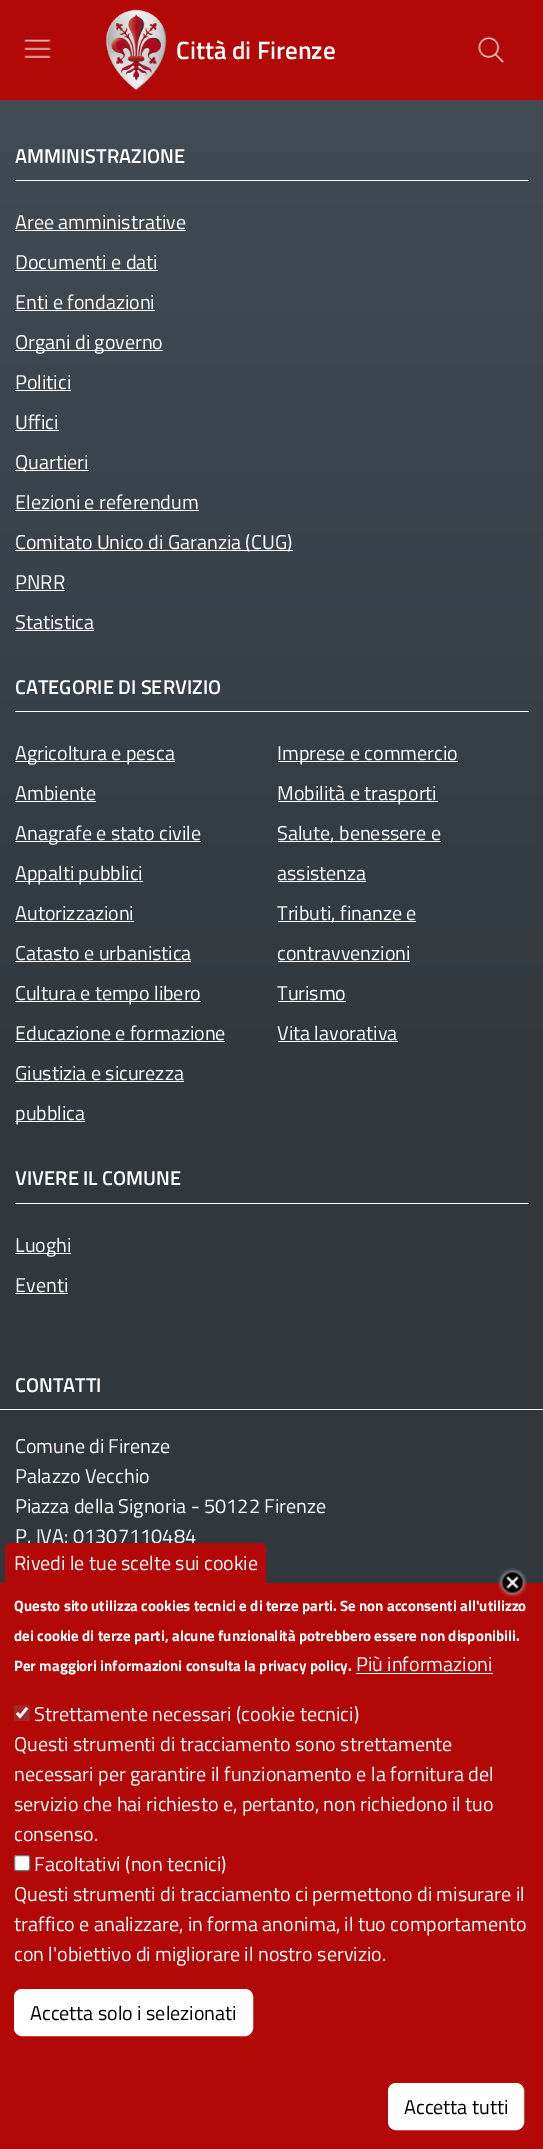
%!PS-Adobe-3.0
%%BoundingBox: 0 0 543 2149
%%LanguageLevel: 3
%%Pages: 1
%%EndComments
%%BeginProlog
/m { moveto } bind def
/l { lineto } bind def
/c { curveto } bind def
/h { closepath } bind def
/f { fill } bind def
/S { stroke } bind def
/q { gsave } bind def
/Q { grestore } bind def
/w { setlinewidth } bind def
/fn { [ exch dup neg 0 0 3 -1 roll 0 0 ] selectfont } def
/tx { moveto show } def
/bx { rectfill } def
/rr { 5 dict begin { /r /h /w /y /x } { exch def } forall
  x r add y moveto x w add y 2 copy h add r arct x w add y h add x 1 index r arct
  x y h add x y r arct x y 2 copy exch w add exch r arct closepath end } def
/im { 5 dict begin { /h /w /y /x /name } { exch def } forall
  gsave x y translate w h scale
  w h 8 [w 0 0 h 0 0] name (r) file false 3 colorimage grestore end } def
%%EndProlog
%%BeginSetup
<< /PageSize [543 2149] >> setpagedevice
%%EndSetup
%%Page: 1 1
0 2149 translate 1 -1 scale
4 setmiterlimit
1 setgray
0 0 543 2149 bx
0.702 0.031 0.031 setrgbcolor
0 0 543 100 bx
(image0.raw) 24 39 27 19 im
(image1.raw) 105 9 62 82 im
/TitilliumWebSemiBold-SemiBold 25 fn
1 setgray
(Città di Firenze) 176 59 tx
(image2.raw) 478 36 26 27 im
q 0 100 m 543 100 l 543 1583 l 0 1583 l h clip newpath
<< /ShadingType 2 /ColorSpace /DeviceRGB /Coords [272 -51 272 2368] /Extend [true true] /Function << /FunctionType 3 /Domain [0 1] /Functions [<< /FunctionType 2 /Domain [0 1] /C0 [0.267 0.306 0.341] /C1 [0.188 0.216 0.239] /N 1 >> << /FunctionType 2 /Domain [0 1] /C0 [0.188 0.216 0.239] /C1 [0.188 0.216 0.239] /N 1 >>] /Bounds [0.5] /Encode [0 1 0 1] >> >> shfill Q
15 180 514 1 bx
/TitilliumWebSemiBold-SemiBold 20 fn
(AMMINISTRAZIONE) 15 163 tx
/TitilliumWeb-Regular 20 fn
(Aree amministrative) 15 229 tx
15 230 171 1 bx
(Documenti e dati) 15 269 tx
15 270 143 1 bx
(Enti e fondazioni) 15 309 tx
15 310 140 1 bx
15 350 148 1 bx
(Organi di governo) 15 349 tx
(Politici) 15 389 tx
15 390 56 1 bx
(Uffici) 15 429 tx
15 430 44 1 bx
15 470 74 1 bx
(Quartieri) 15 469 tx
(Elezioni e referendum) 15 509 tx
15 510 184 1 bx
15 550 278 1 bx
(Comitato Unico di Garanzia \(CUG\)) 15 549 tx
(PNRR) 15 589 tx
15 590 50 1 bx
(Statistica) 15 629 tx
15 630 79 1 bx
15 711 514 1 bx
/TitilliumWebSemiBold-SemiBold 20 fn
(CATEGORIE DI SERVIZIO) 15 694 tx
15 761 160 1 bx
/TitilliumWeb-Regular 20 fn
(Agricoltura e pesca) 15 760 tx
278 761 180 1 bx
(Imprese e commercio) 277 760 tx
(Ambiente) 15 800 tx
15 801 81 1 bx
278 801 160 1 bx
(Mobilità e trasporti) 277 800 tx
15 841 186 1 bx
(Anagrafe e stato civile) 15 840 tx
278 841 163 1 bx
(Salute, benessere e) 277 840 tx
(assistenza) 277 880 tx
278 881 88 1 bx
15 881 128 1 bx
(Appalti pubblici) 15 880 tx
(Autorizzazioni) 15 920 tx
15 921 119 1 bx
278 921 138 1 bx
(Tributi, finanze e) 277 920 tx
(contravvenzioni) 277 960 tx
278 961 132 1 bx
(Catasto e urbanistica) 15 960 tx
15 961 176 1 bx
15 1001 186 1 bx
(Cultura e tempo libero) 15 1000 tx
(Turismo) 277 1000 tx
278 1001 68 1 bx
(Educazione e formazione) 15 1040 tx
15 1041 210 1 bx
(Vita lavorativa) 277 1040 tx
278 1041 120 1 bx
(Giustizia e sicurezza) 15 1080 tx
15 1081 169 1 bx
15 1121 70 1 bx
(pubblica) 15 1120 tx
15 1203 514 1 bx
/TitilliumWebSemiBold-SemiBold 20 fn
(VIVERE IL COMUNE) 15 1185 tx
15 1253 56 1 bx
/TitilliumWeb-Regular 20 fn
(Luoghi) 15 1252 tx
(Eventi) 15 1292 tx
15 1293 53 1 bx
0 1409 543 1 bx
/TitilliumWebSemiBold-SemiBold 20 fn
(CONTATTI) 15 1392 tx
/TitilliumWeb-Regular 20 fn
(Comune di Firenze) 15 1453 tx
(Palazzo Vecchio) 15 1483 tx
(Piazza della Signoria - 50122 Firenze) 15 1513 tx
(P. IVA: 01307110484) 15 1543 tx
0.702 0.031 0.031 setrgbcolor
0 1583 543 566 bx
11 1543 m 260 1543 l 263.5 1543 266 1545.5 266 1549 c 266 1583 l 5 1583 l 5 1549 l 5 1545.5 7.5 1543 11 1543 c h f
1 setgray
(Rivedi le tue scelte sui cookie) 14 1570 tx
(image3.raw) 498 1568 29 29 im
/TitilliumWeb-Bold 15 fn
(Questo sito utilizza cookies tecnici e di terze parti. Se non acconsenti all'utilizzo) 14 1611 tx
(dei cookie di terze parti, alcune funzionalità potrebbero essere non disponibili.) 14 1641 tx
(Per maggiori informazioni consulta la privacy policy.) 14 1671 tx
/TitilliumWeb-Regular 20 fn
(Più informazioni) 356 1671 tx
356 1673 137 1 bx
0.631 0.161 0.161 setrgbcolor
14 1705 16 16 2.5 rr f
1 setgray
2.6 w
17 1713 m 20 1716.5 l 27 1708 l S
(Strettamente necessari \(cookie tecnici\)) 34 1721 tx
(Questi strumenti di tracciamento sono strettamente) 14 1751 tx
(necessari per garantire il funzionamento e la fornitura del) 14 1781 tx
(servizio che hai richiesto e, pertanto, non richiedono il tuo) 14 1811 tx
(consenso.) 14 1841 tx
14.5 1855.5 15 15 2 rr q f Q
0.463 setgray
1 w
S
1 setgray
(Facoltativi \(non tecnici\)) 34 1871 tx
(Questi strumenti di tracciamento ci permettono di misurare il) 14 1901 tx
(traffico e analizzare, in forma anonima, il tuo comportamento) 14 1931 tx
(con l'obiettivo di migliorare il nostro servizio.) 14 1961 tx
14.5 1989.5 238 46 7.5 rr q f Q
S
0 setgray
(Accetta solo i selezionati) 30 2020 tx
1 setgray
388.5 2083.5 135 46 7.5 rr q f Q
S
0 setgray
(Accetta tutti) 404 2114 tx
showpage
%%EOF
